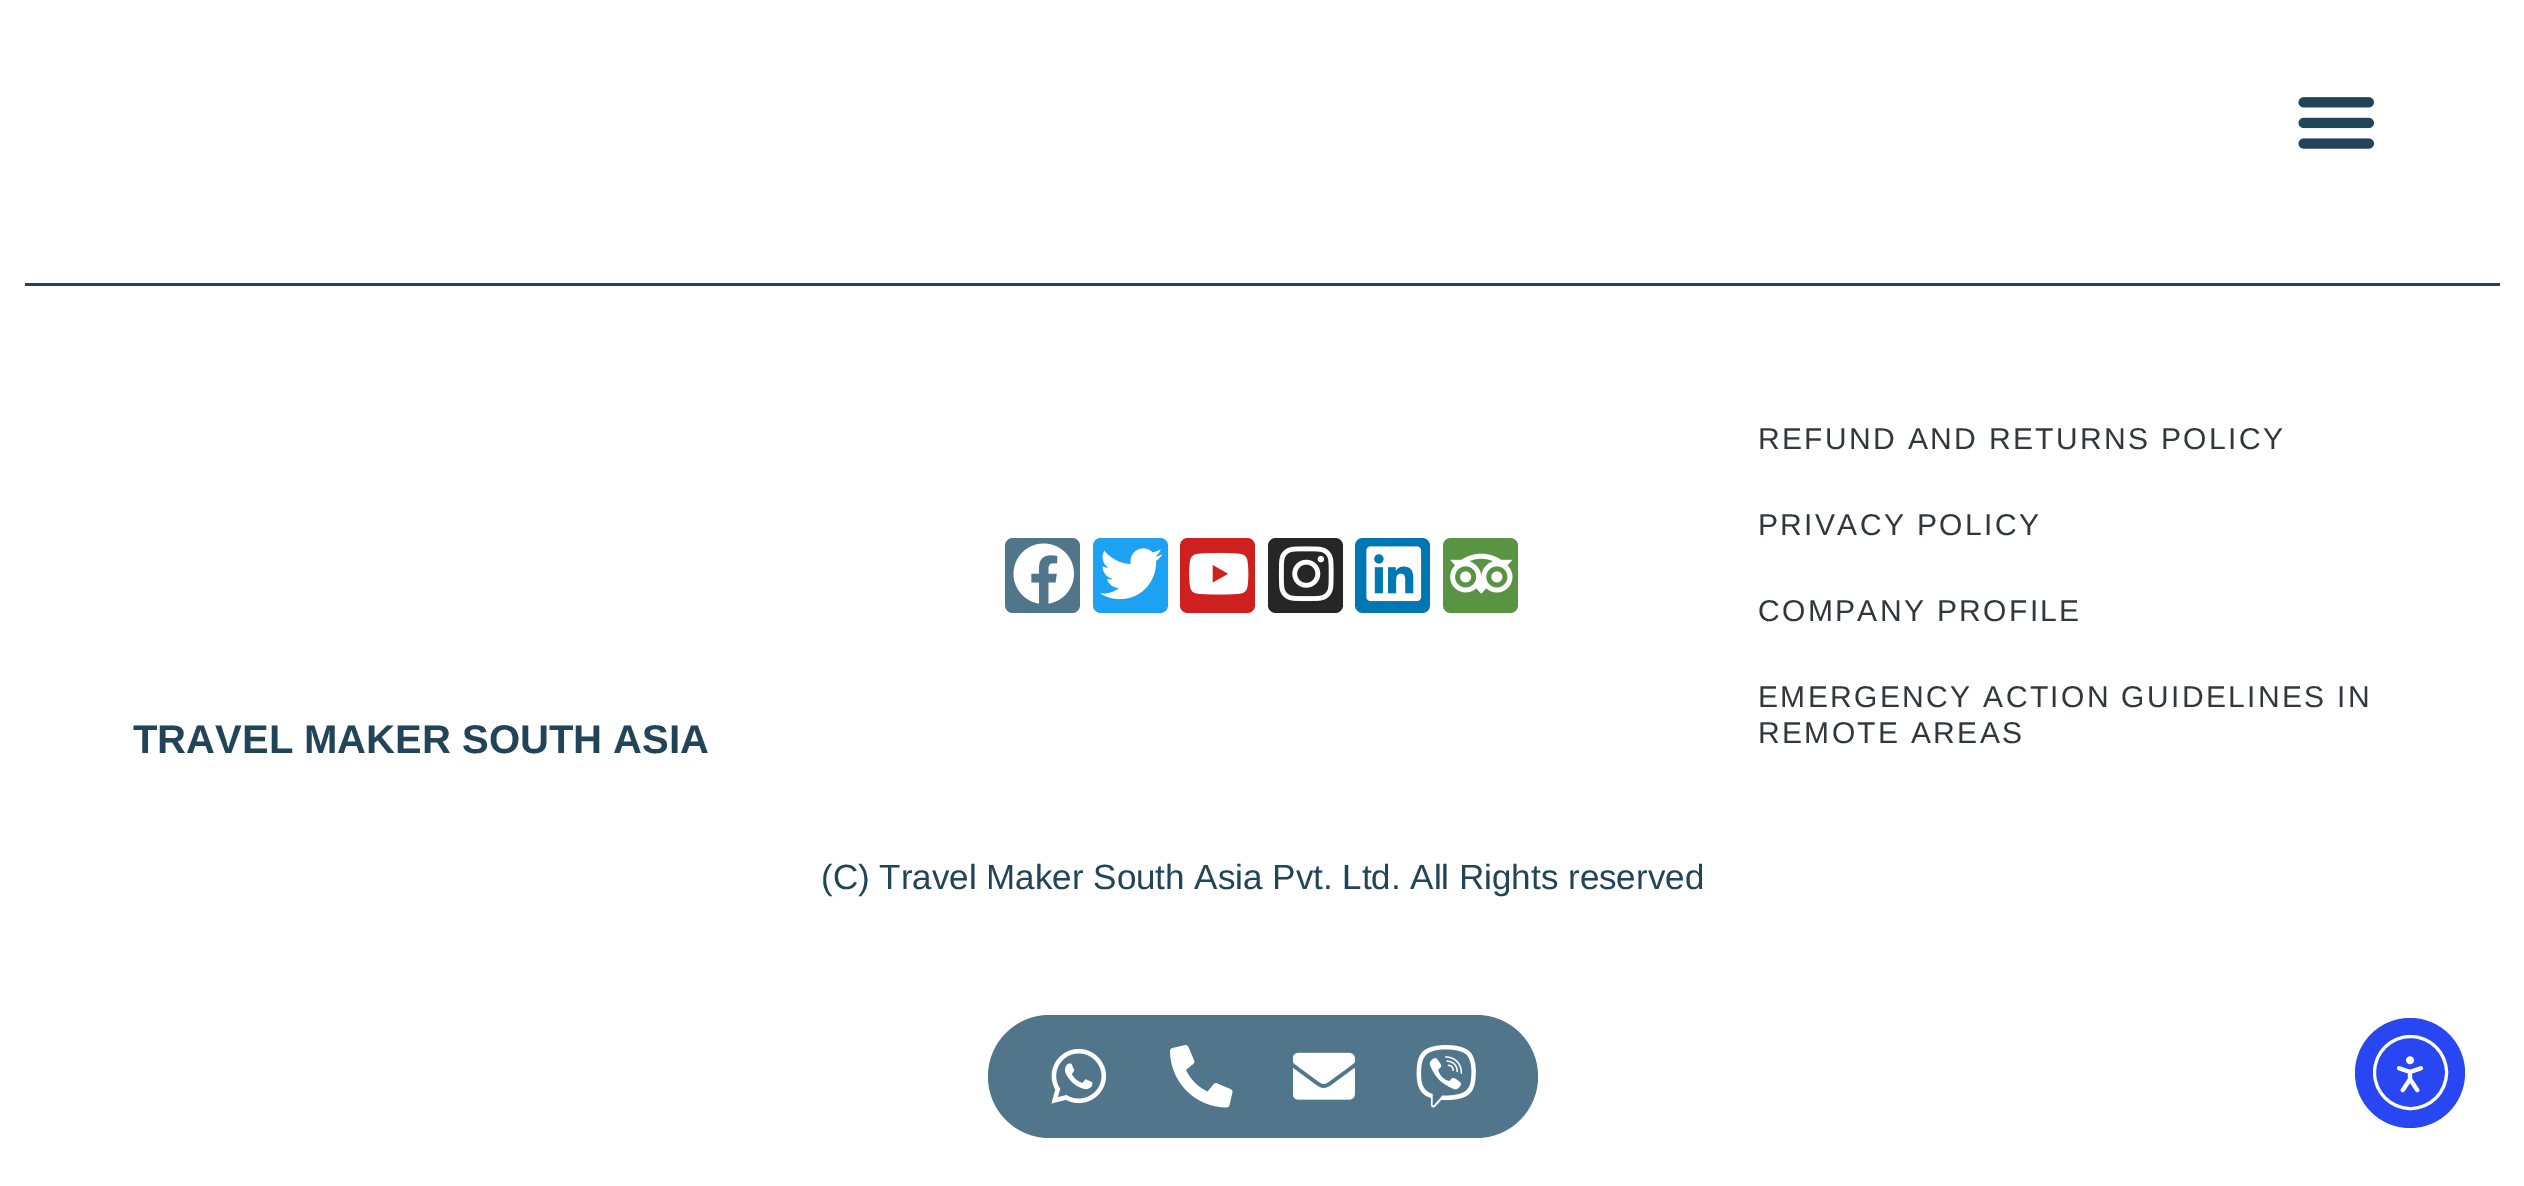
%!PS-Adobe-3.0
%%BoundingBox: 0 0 2524 1186
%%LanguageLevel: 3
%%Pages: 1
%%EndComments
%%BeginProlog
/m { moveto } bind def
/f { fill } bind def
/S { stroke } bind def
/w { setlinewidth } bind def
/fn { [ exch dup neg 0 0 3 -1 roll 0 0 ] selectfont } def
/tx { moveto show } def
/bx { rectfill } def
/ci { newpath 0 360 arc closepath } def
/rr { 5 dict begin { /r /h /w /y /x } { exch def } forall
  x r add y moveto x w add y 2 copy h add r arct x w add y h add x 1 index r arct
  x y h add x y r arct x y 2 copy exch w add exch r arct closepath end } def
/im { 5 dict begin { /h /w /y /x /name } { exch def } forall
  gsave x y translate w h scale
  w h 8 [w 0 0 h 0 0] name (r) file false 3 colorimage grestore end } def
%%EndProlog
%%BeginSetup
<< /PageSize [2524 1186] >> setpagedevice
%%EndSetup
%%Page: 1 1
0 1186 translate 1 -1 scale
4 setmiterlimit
1 setgray
0 0 2524 1186 bx
(image0.raw) 2298 97 76 52 im
0.133 0.267 0.349 setrgbcolor
25 283 2475 3 bx
0.318 0.463 0.549 setrgbcolor
1005 538 75 75 8 rr f
(image1.raw) 1013 543 61 61 im
0.114 0.631 0.949 setrgbcolor
1093 538 75 75 8 rr f
(image2.raw) 1100 548 63 52 im
0.804 0.125 0.122 setrgbcolor
1180 538 75 75 8 rr f
(image3.raw) 1189 552 60 43 im
0.149 setgray
1268 538 75 75 8 rr f
(image4.raw) 1278 546 56 56 im
0 0.467 0.71 setrgbcolor
1355 538 75 75 8 rr f
(image5.raw) 1366 546 56 56 im
0.345 0.58 0.259 setrgbcolor
1443 538 75 75 8 rr f
(image6.raw) 1450 553 63 41 im
/LiberationSans-Regular 30 fn
0.2 0.216 0.239 setrgbcolor
1758 449 m 2.35 0 (REFUND AND RETURNS POLICY) ashow
1758 535 m 2.35 0 (PRIVACY POLICY) ashow
1758 621 m 2.35 0 (COMPANY PROFILE) ashow
1758 707 m 2.35 0 (EMERGENCY ACTION GUIDELINES IN) ashow
1758 743 m 2.35 0 (REMOTE AREAS) ashow
/LiberationSans-Bold 40 fn
0.133 0.267 0.349 setrgbcolor
(TRAVEL MAKER SOUTH ASIA) 133 753 tx
/LiberationSans-Regular 35 fn
(\(C\) Travel Maker South Asia Pvt. Ltd. All Rights reserved) 821 889 tx
0.318 0.463 0.549 setrgbcolor
988 1015 550 123 61.5 rr f
(image7.raw) 1051 1048 56 56 im
(image8.raw) 1170 1045 63 63 im
(image9.raw) 1293 1052 62 48 im
(image10.raw) 1416 1045 60 63 im
0.157 0.278 0.953 setrgbcolor
2410 1073 55 ci f
1 setgray
3 w
2410.5 1072.5 36 ci S
(image11.raw) 2396 1056 28 37 im
showpage
%%EOF
